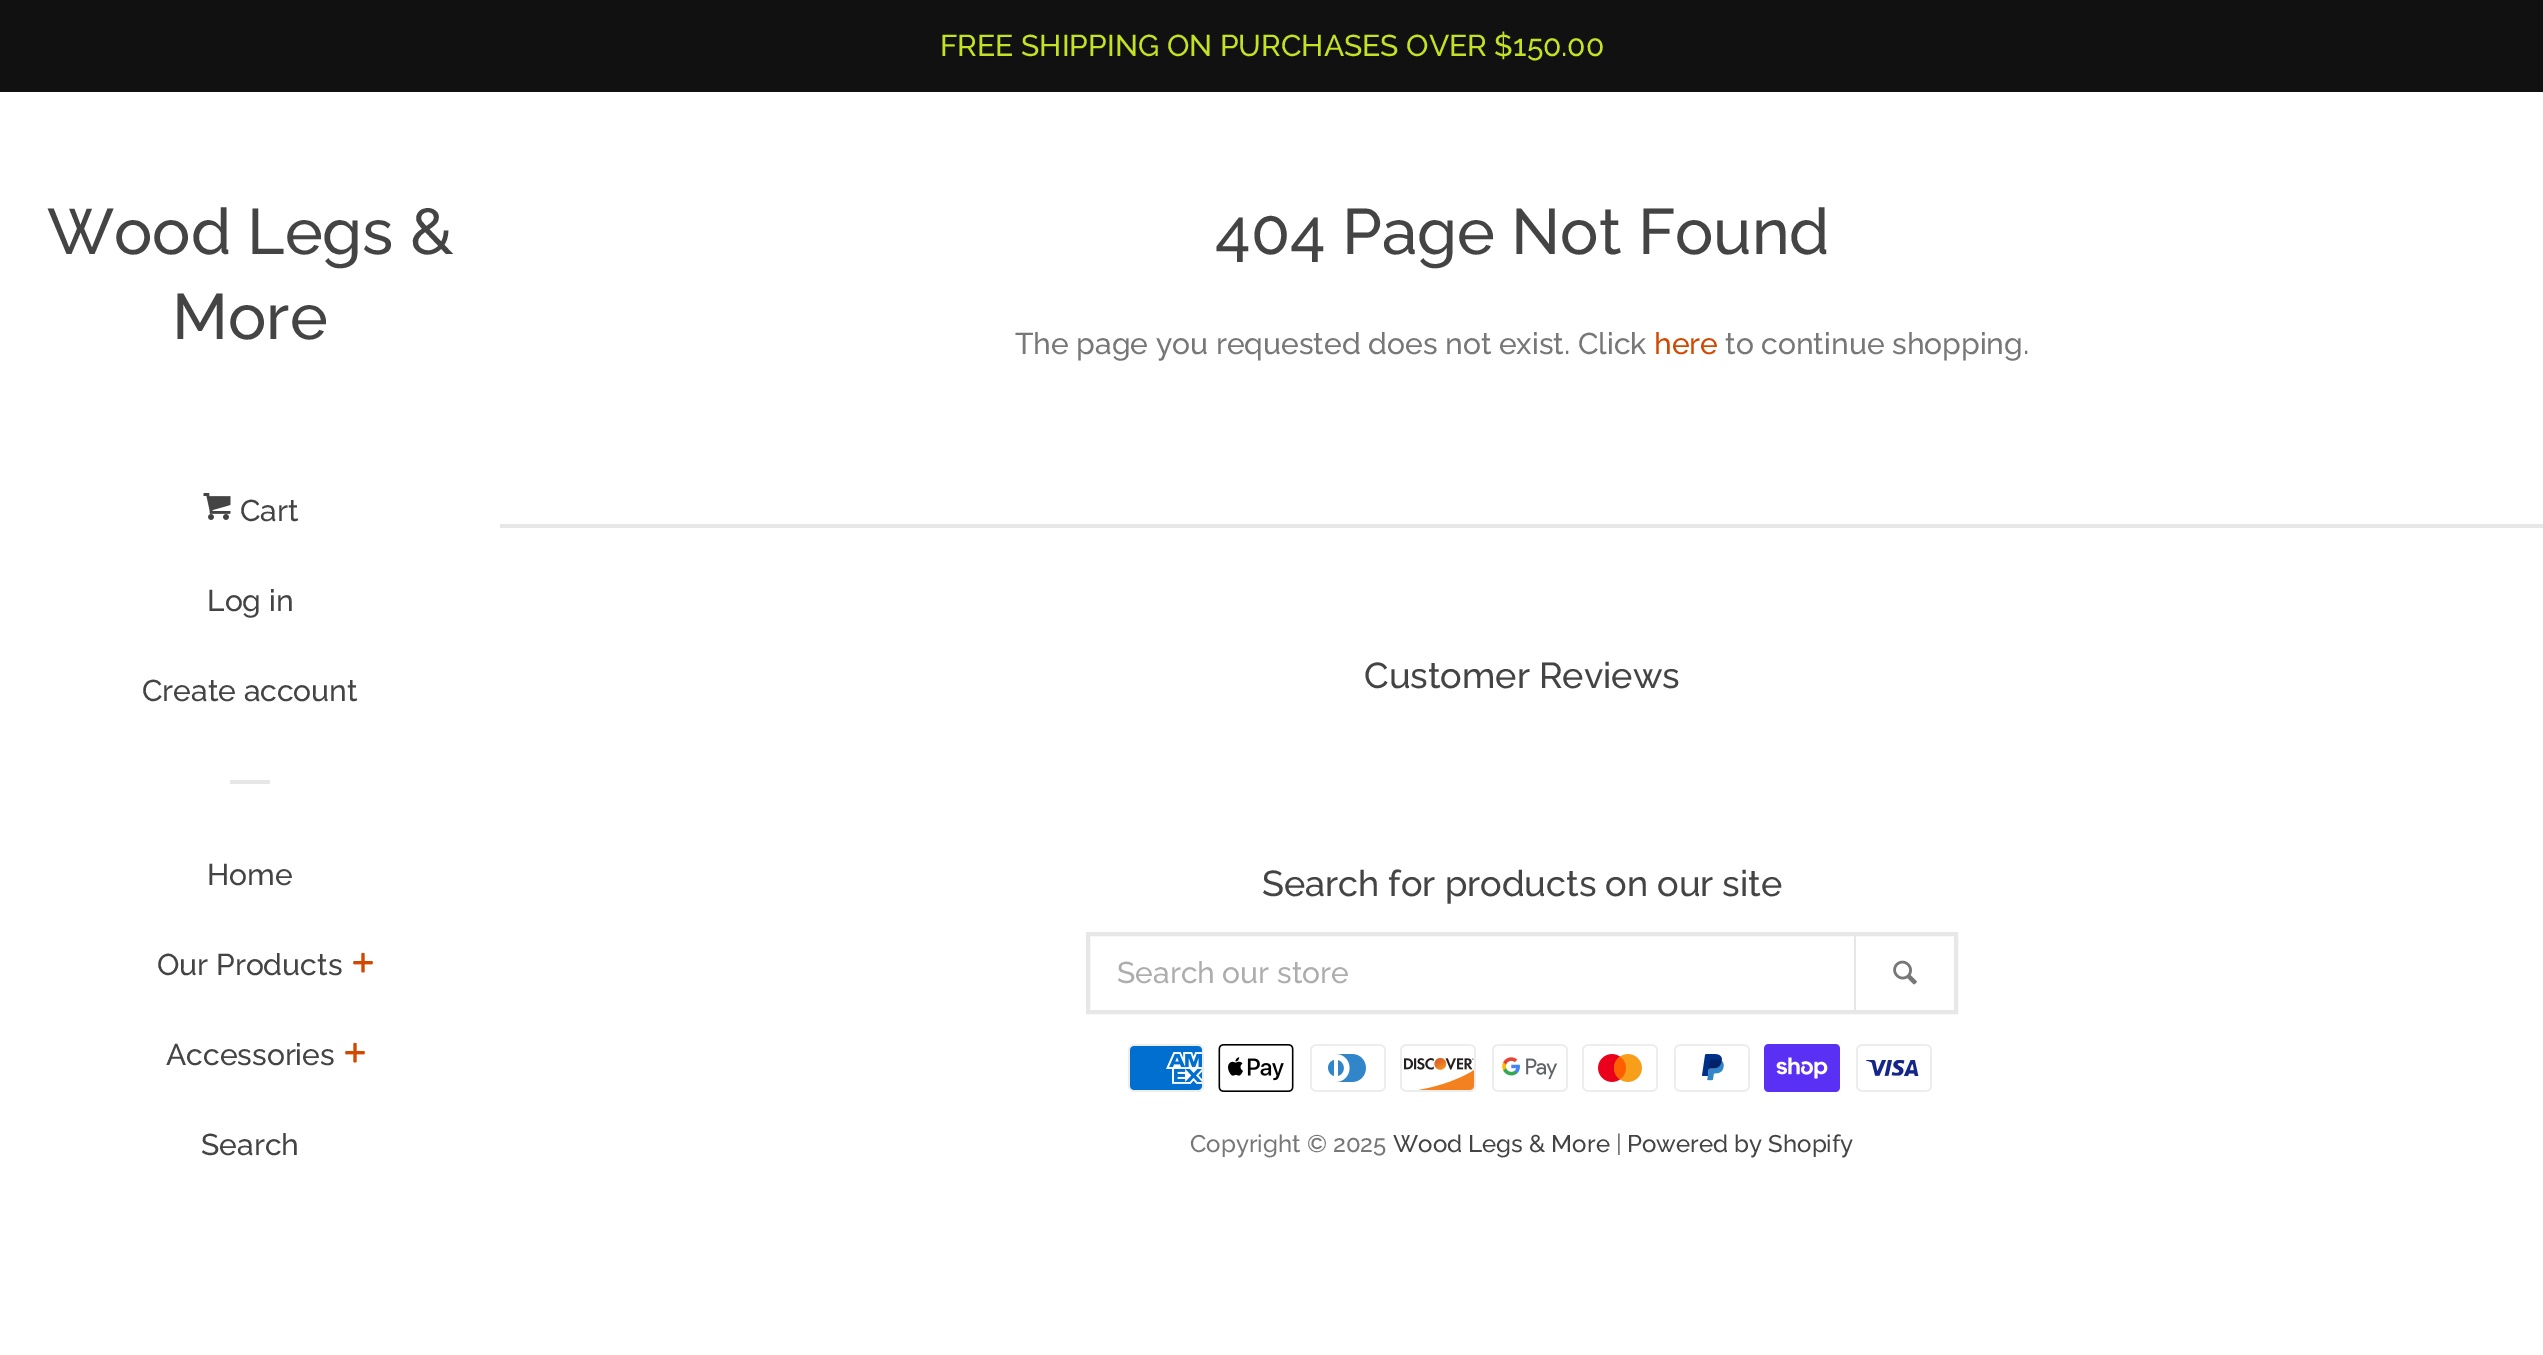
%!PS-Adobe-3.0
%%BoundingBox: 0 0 2543 1355
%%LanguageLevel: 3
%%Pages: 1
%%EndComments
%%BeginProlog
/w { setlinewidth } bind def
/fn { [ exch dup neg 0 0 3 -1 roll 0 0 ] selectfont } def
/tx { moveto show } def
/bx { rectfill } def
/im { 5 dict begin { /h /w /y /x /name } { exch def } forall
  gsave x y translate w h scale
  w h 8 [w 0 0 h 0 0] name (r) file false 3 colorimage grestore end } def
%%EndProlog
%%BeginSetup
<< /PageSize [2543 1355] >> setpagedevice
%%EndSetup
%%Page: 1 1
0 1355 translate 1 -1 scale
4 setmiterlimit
1 setgray
0 0 2543 1355 bx
/Raleway-Medium 64 fn
0.267 setgray
(Wood Legs &) 47 254 tx
(More) 172 339 tx
(image0.raw) 203 493 28 27 im
/Raleway-Medium 30 fn
(Cart) 240 521 tx
(Log in) 207 611 tx
(Create account) 142 701 tx
0.902 setgray
230 780 40 4 bx
0.267 setgray
(Home) 207 885 tx
(Our Products) 157 975 tx
(image1.raw) 353 952 20 21 im
(Accessories) 166 1065 tx
(image1.raw) 345 1042 20 21 im
(Search) 201 1155 tx
0.067 setgray
0 0 2543 92 bx
0.765 0.886 0.133 setrgbcolor
(FREE SHIPPING ON PURCHASES OVER $150.00) 940 56 tx
/Raleway-Medium 64 fn
0.267 setgray
(404 Page Not Found) 1215 254 tx
/Raleway-Medium 30 fn
0.467 setgray
(The page you requested does not exist. Click) 1015 354 tx
0.82 0.282 0 setrgbcolor
(here) 1654 354 tx
0.467 setgray
(to continue shopping.) 1725 354 tx
0.906 setgray
500 524 2043 4 bx
/Raleway-Medium 36 fn
0.267 setgray
(Customer Reviews) 1364 688 tx
(Search for products on our site) 1262 896 tx
0.906 setgray
4 w
1088 934 868 78 rectstroke
1854 936 2 74 bx
/Raleway-Medium 30 fn
0.678 setgray
(Search our store) 1117 983 tx
(image2.raw) 1893 960 24 25 im
(image3.raw) 1128 1044 76 48 im
(image4.raw) 1218 1044 76 48 im
(image5.raw) 1310 1044 76 48 im
(image6.raw) 1400 1044 76 48 im
(image7.raw) 1492 1044 76 48 im
(image8.raw) 1582 1044 76 48 im
(image9.raw) 1674 1044 76 48 im
(image10.raw) 1764 1044 76 48 im
(image11.raw) 1856 1044 76 48 im
/Raleway-Medium 24 fn
0.467 setgray
(Copyright © 2025) 1190 1152 tx
0.267 setgray
(Wood Legs & More) 1393 1152 tx
0.467 setgray
(|) 1616 1152 tx
0.267 setgray
(Powered by Shopify) 1627 1152 tx
showpage
%%EOF
